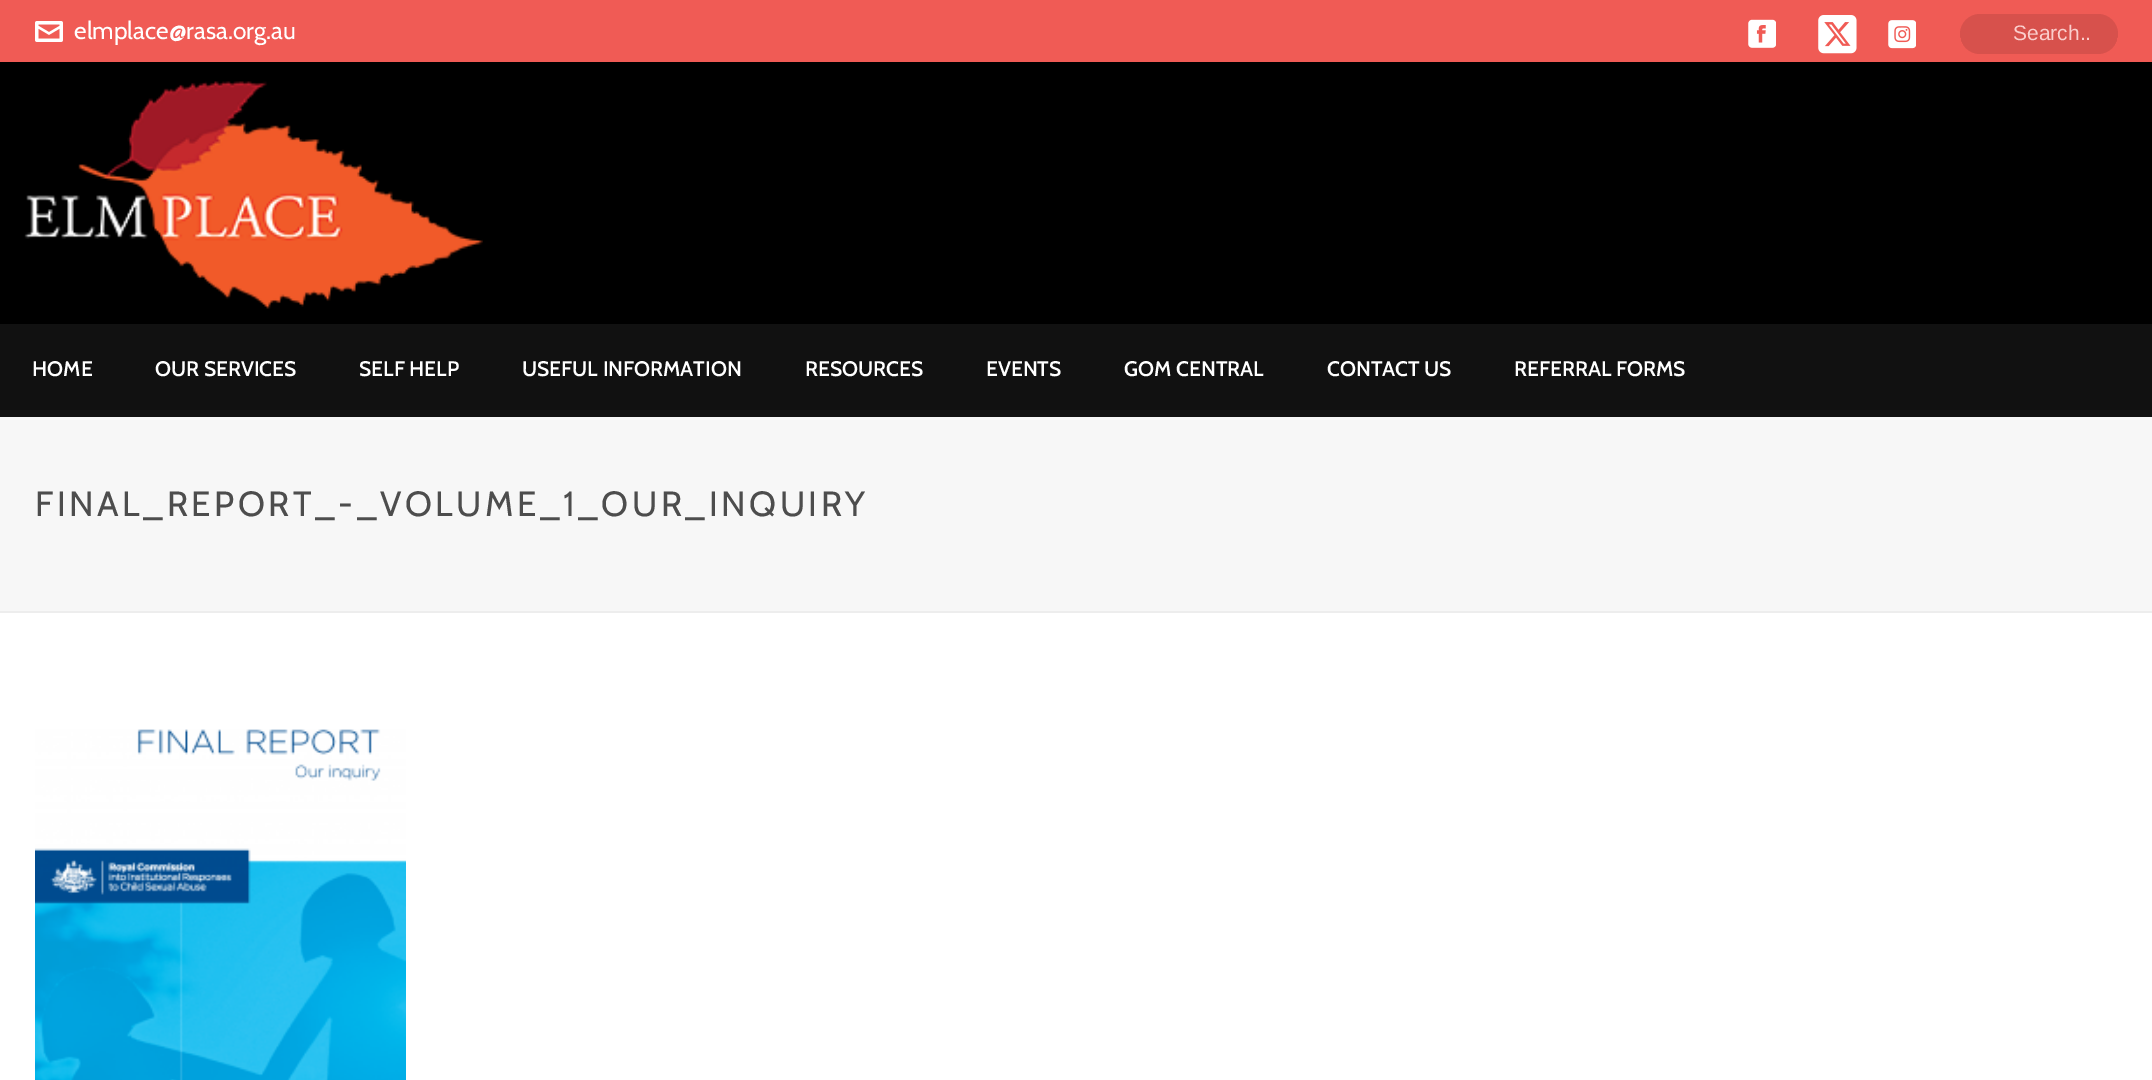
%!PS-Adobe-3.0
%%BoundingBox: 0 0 2152 1080
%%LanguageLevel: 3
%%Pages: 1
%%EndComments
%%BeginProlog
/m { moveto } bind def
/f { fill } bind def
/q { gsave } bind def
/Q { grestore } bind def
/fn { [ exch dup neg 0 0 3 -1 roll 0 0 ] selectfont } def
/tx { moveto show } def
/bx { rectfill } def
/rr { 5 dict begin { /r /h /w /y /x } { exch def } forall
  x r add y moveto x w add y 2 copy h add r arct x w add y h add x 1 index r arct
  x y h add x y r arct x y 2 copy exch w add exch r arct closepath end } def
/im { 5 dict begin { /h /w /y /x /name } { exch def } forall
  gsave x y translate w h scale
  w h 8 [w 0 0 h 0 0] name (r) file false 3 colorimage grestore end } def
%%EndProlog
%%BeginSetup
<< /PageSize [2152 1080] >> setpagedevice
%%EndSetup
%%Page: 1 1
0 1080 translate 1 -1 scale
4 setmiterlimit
1 setgray
0 0 2152 1080 bx
0.969 setgray
0 417 2152 194 bx
0.929 setgray
0 611 2152 2 bx
0.941 0.357 0.333 setrgbcolor
0 0 2152 62 bx
(image0.raw) 35 21 28 21 im
/Cabin-Regular 24.5 fn
1 setgray
(elmplace@rasa.org.au) 74 39 tx
(image1.raw) 1748 19 28 29 im
(image2.raw) 1818 15 39 39 im
(image3.raw) 1888 20 28 29 im
q
1960 0 158 61 30.5 rr clip newpath
0.843 0.318 0.298 setrgbcolor
1960 14 158 40 20 rr f
Q
/LiberationSans-Regular 21 fn
0.984 0.808 0.8 setrgbcolor
(Search..) 2013 40 tx
0 setgray
0 62 2152 262 bx
(image4.raw) 24 81 459 228 im
0.067 setgray
0 324 2152 93 bx
/Cabin-SemiBold 21 fn
1 setgray
(HOME) 32 376 tx
(OUR SERVICES) 155 376 tx
(SELF HELP) 359 376 tx
(USEFUL INFORMATION) 522 376 tx
(RESOURCES) 805 376 tx
(EVENTS) 986 376 tx
(GOM CENTRAL) 1124 376 tx
(CONTACT US) 1327 376 tx
(REFERRAL FORMS) 1514 376 tx
/Cabin-Regular 35 fn
0.302 setgray
35 516 m 3.5 0 (FINAL_REPORT_-_VOLUME_1_OUR_INQUIRY) ashow
(image5.raw) 35 729 371 351 im
showpage
%%EOF
